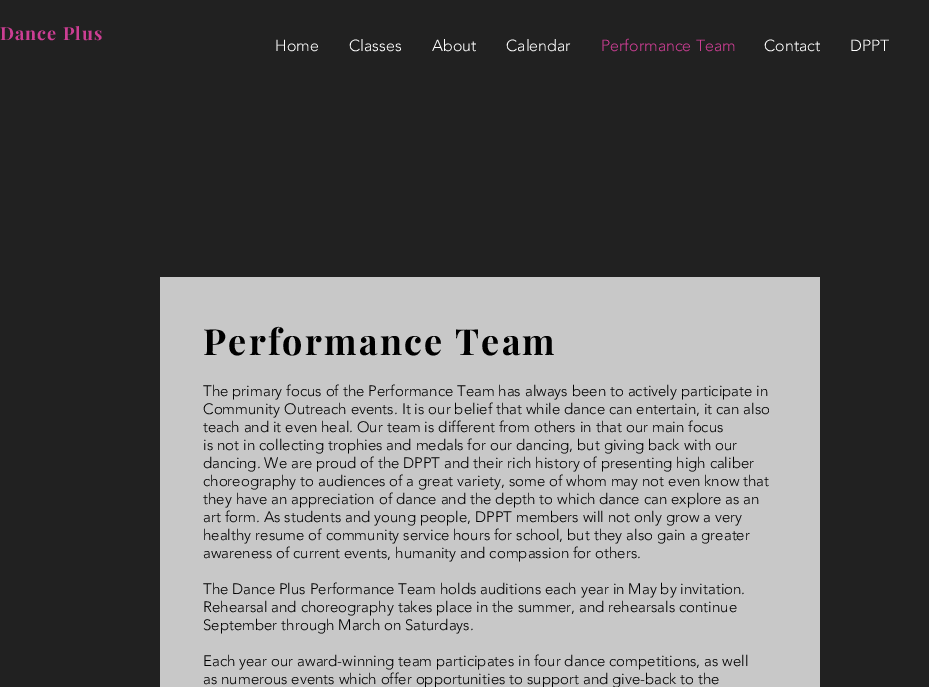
%!PS-Adobe-3.0
%%BoundingBox: 0 0 929 687
%%LanguageLevel: 3
%%Pages: 1
%%EndComments
%%BeginProlog
/m { moveto } bind def
/fn { [ exch dup neg 0 0 3 -1 roll 0 0 ] selectfont } def
/tx { moveto show } def
/bx { rectfill } def
%%EndProlog
%%BeginSetup
<< /PageSize [929 687] >> setpagedevice
%%EndSetup
%%Page: 1 1
0 687 translate 1 -1 scale
4 setmiterlimit
0.129 setgray
0 0 929 687 bx
/PlayfairDisplay-Bold 18 fn
0.8 0.243 0.576 setrgbcolor
0 40 m 1 0 (Dance Plus) ashow
/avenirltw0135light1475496-Light 16 fn
1 setgray
(Home) 275 51 tx
(Classes) 349 51 tx
(About) 432 51 tx
(Calendar) 506 51 tx
0.8 0.243 0.576 setrgbcolor
(Performance Team) 601 51 tx
1 setgray
(Contact) 764 51 tx
(DPPT) 850 51 tx
0.784 setgray
160 277 660 410 bx
/PlayfairDisplay-Bold 36 fn
0 setgray
203 355 m 2.2 0 (Performance Team) ashow
/avenirltw0135light1475496-Light 15 fn
(The primary focus of the Performance Team has always been to actively participate in) 203 396 tx
(Community Outreach events. It is our belief that while dance can entertain, it can also) 203 414 tx
(teach and it even heal. Our team is different from others in that our main focus) 203 432 tx
(is not in collecting trophies and medals for our dancing, but giving back with our) 203 450 tx
(dancing. We are proud of the DPPT and their rich history of presenting high caliber) 203 468 tx
(choreography to audiences of a great variety, some of whom may not even know that) 203 486 tx
(they have an appreciation of dance and the depth to which dance can explore as an) 203 504 tx
(art form. As students and young people, DPPT members will not only grow a very) 203 522 tx
(healthy resume of community service hours for school, but they also gain a greater) 203 540 tx
(awareness of current events, humanity and compassion for others.) 203 558 tx
(The Dance Plus Performance Team holds auditions each year in May by invitation.) 203 594 tx
(Rehearsal and choreography takes place in the summer, and rehearsals continue) 203 612 tx
(September through March on Saturdays.) 203 630 tx
(Each year our award-winning team participates in four dance competitions, as well) 203 666 tx
(as numerous events which offer opportunities to support and give-back to the) 203 684 tx
showpage
%%EOF
